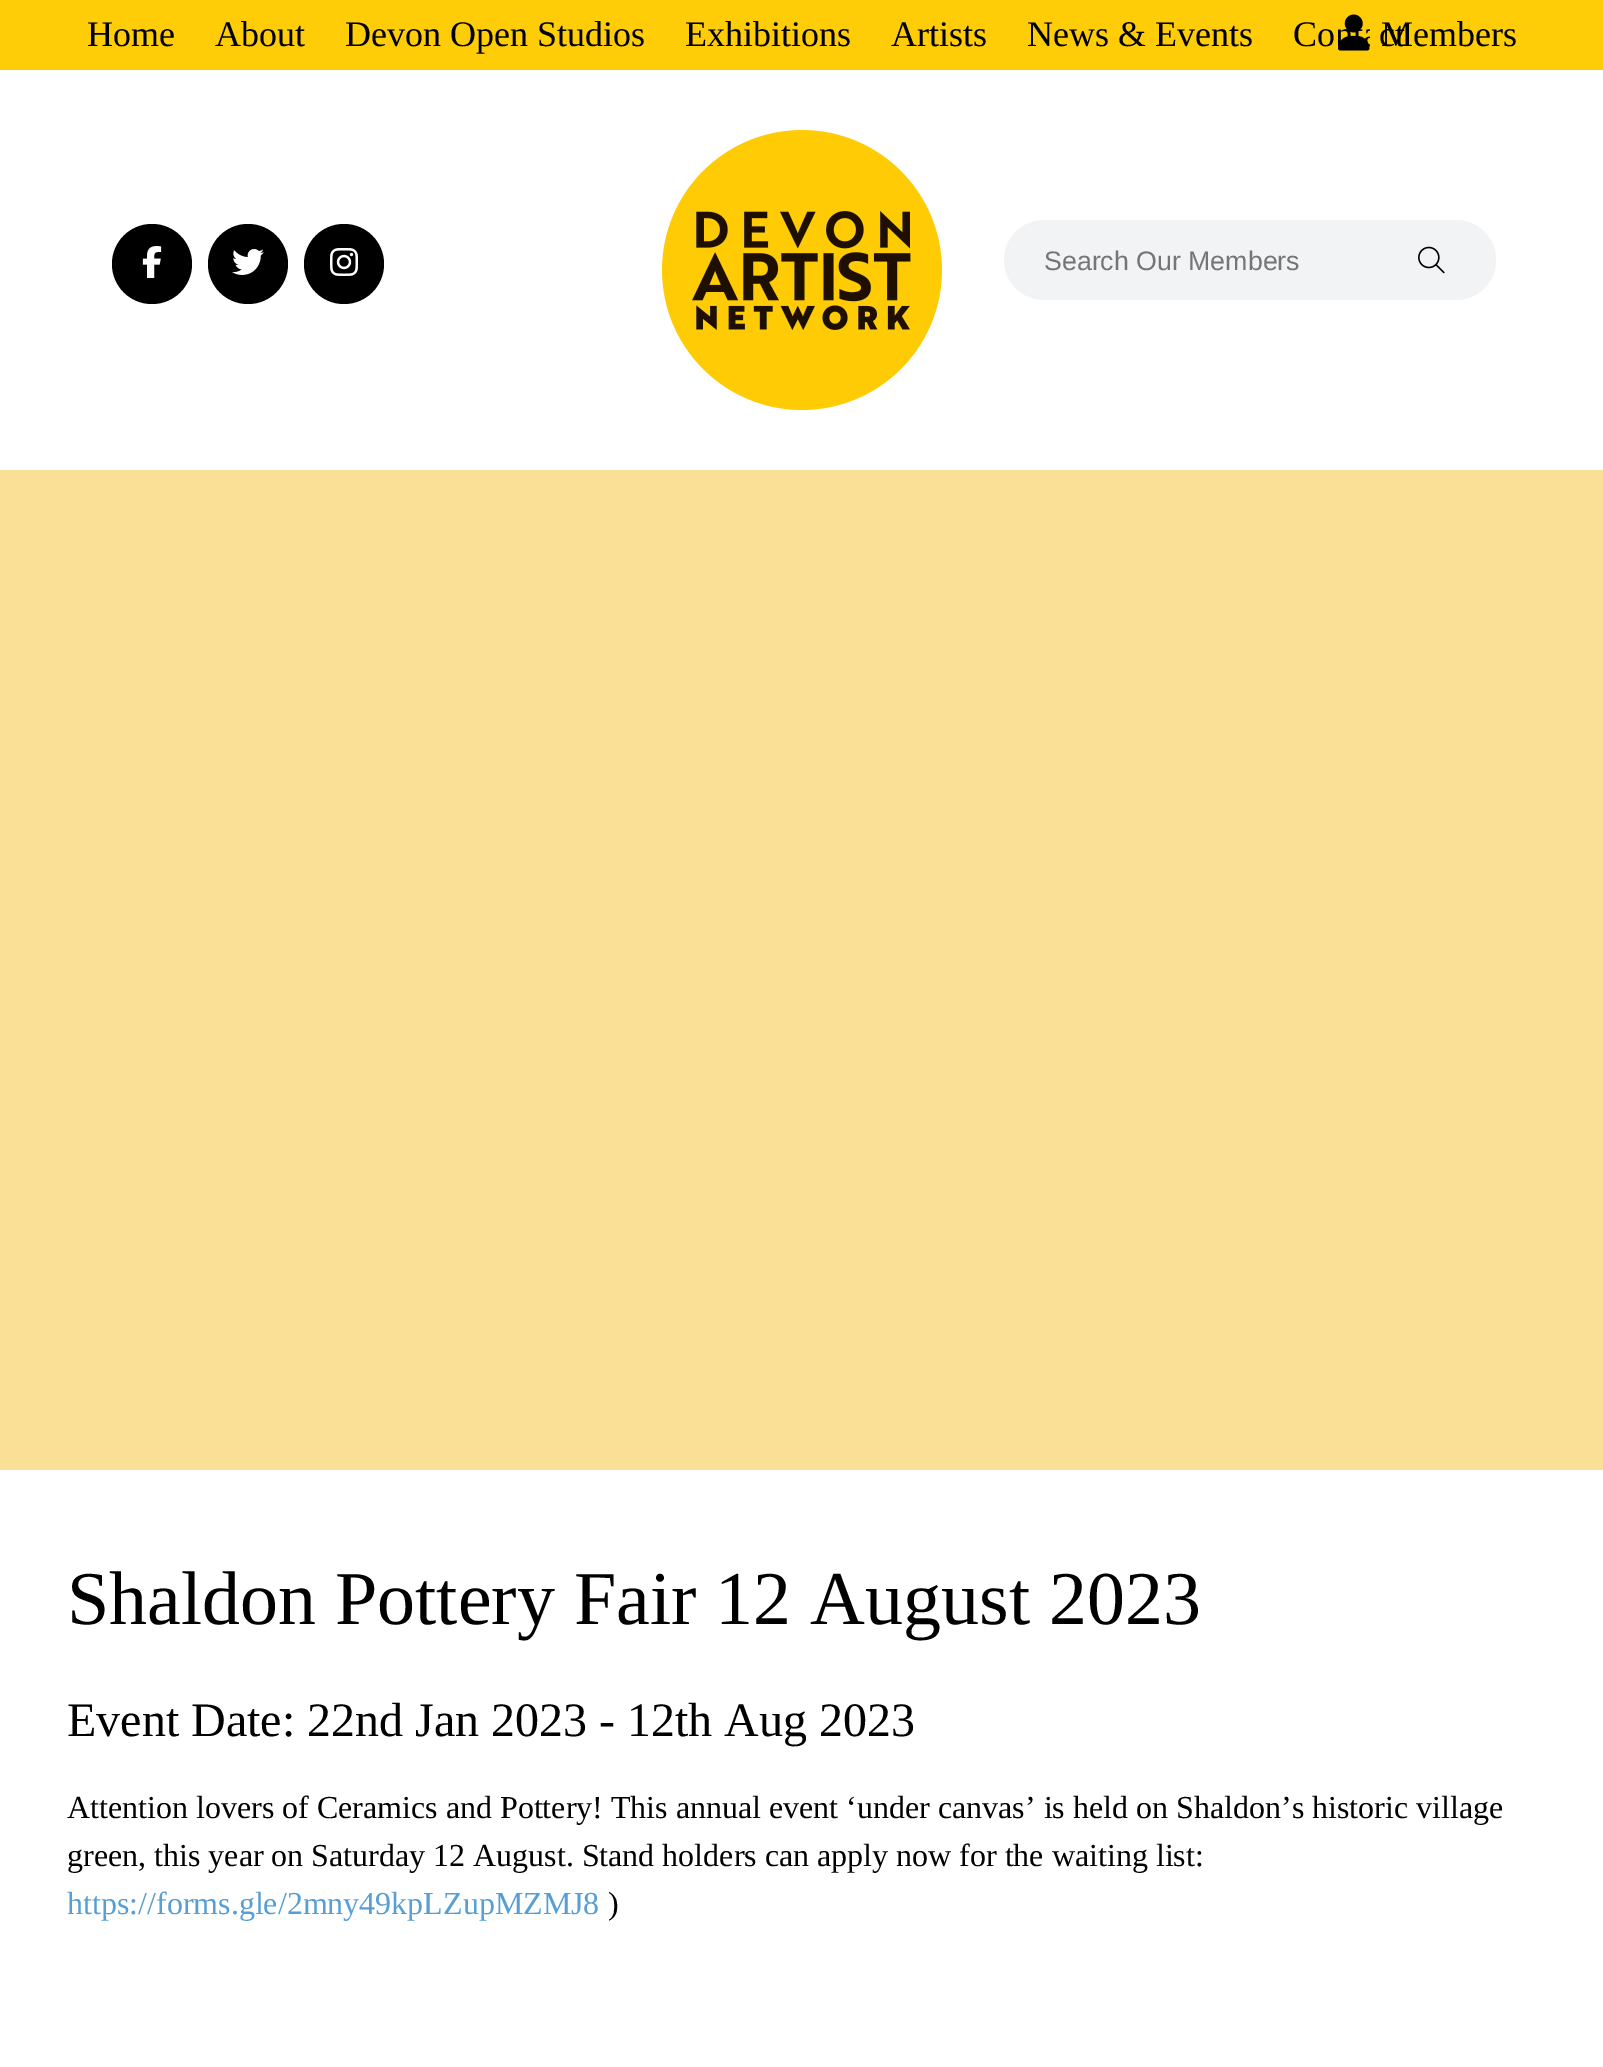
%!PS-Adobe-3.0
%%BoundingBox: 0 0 1603 2067
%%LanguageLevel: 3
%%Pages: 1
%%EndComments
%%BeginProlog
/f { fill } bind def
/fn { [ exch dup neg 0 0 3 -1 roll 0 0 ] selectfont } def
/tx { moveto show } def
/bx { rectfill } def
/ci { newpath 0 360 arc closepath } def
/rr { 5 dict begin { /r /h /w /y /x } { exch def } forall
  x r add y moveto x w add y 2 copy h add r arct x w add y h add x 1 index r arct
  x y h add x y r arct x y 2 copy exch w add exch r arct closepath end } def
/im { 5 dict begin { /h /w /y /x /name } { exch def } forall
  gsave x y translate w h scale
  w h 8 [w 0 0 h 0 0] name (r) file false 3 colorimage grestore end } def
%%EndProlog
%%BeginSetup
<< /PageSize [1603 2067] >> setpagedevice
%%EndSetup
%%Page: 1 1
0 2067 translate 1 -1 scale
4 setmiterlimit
1 setgray
0 0 1603 2067 bx
0.996 0.804 0.027 setrgbcolor
0 0 1603 70 bx
/LiberationSerif-Regular 36 fn
0 setgray
(Home) 87 46 tx
(About) 215 46 tx
(Devon Open Studios) 345 46 tx
(Exhibitions) 685 46 tx
(Artists) 891 46 tx
(News & Events) 1027 46 tx
(Co) 1293 46 tx
(ct) 1379 46 tx
(image0.raw) 1338 14 32 37 im
(Members) 1381 46 tx
152 264 40 ci f
(image1.raw) 142 246 20 32 im
248 264 40 ci f
(image2.raw) 232 249 32 26 im
344 264 40 ci f
(image3.raw) 330 248 28 28 im
(image4.raw) 662 130 280 280 im
0.949 0.953 0.957 setrgbcolor
1004 220 492 80 40 rr f
/LiberationSans-Regular 26.75 fn
0.459 setgray
(Search Our Members) 1044 270 tx
(image5.raw) 1418 246 27 28 im
0.976 0.878 0.588 setrgbcolor
0 470 1603 1000 bx
/LiberationSerif-Regular 76 fn
0 setgray
(Shaldon Pottery Fair 12 August 2023) 67 1624 tx
/LiberationSerif-Regular 48 fn
(Event Date: 22nd Jan 2023 - 12th Aug 2023) 67 1736 tx
/LiberationSerif-Regular 32 fn
(Attention lovers of Ceramics and Pottery! This annual event ‘under canvas’ is held on Shaldon’s historic village) 67 1818 tx
(green, this year on Saturday 12 August. Stand holders can apply now for the waiting list:) 67 1866 tx
0.337 0.62 0.835 setrgbcolor
(https://forms.gle/2mny49kpLZupMZMJ8) 67 1914 tx
0 setgray
(\)) 608 1914 tx
showpage
%%EOF
